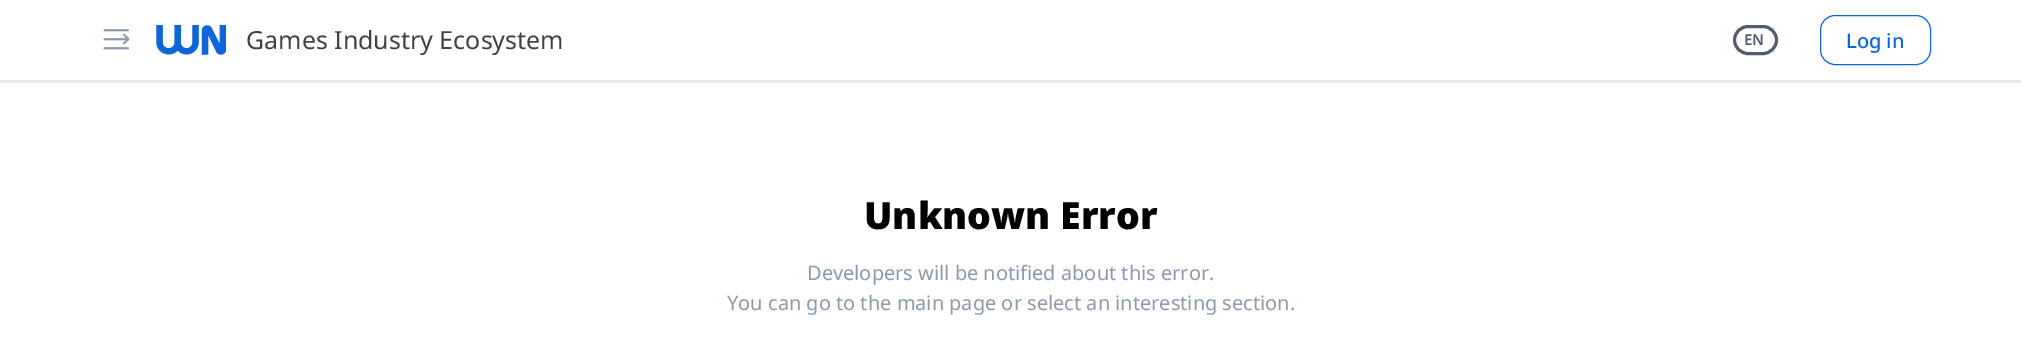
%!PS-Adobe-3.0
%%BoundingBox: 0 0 2021 355
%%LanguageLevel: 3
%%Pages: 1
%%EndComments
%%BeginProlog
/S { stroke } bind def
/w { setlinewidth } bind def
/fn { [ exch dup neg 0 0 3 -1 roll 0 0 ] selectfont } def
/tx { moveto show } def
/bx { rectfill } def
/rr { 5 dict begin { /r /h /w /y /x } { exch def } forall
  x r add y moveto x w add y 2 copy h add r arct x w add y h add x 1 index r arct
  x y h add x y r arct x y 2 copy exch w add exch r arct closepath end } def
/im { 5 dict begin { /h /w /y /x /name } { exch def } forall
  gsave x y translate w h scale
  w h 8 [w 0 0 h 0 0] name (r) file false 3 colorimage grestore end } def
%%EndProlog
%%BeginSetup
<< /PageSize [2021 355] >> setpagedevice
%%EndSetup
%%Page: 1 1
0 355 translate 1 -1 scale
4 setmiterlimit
0.91 0.922 0.933 setrgbcolor
0 0 2021 355 bx
1 setgray
0 0 2021 80 bx
(image0.raw) 103 29 27 21 im
(image1.raw) 156 25 70 30 im
/NotoSans-Regular 25 fn
0.255 setgray
(Games Industry Ecosystem) 246 49 tx
0.318 0.365 0.431 setrgbcolor
3 w
1734.5 26.5 42 27 13.5 rr S
/NotoSans-SemiBold 15 fn
(EN) 1744 45 tx
0.051 0.396 0.847 setrgbcolor
1 w
1820.5 15.5 110 49 14.5 rr S
/NotoSans-Medium 20 fn
(Log in) 1846 48 tx
1 setgray
0 83 2021 272 bx
/NotoSans-Black 37.5 fn
0 setgray
(Unknown Error) 864 229 tx
/NotoSans-Regular 20 fn
0.549 0.6 0.671 setrgbcolor
(Developers will be notified about this error.) 807 280 tx
(You can go to the main page or select an interesting section.) 727 310 tx
showpage
%%EOF
